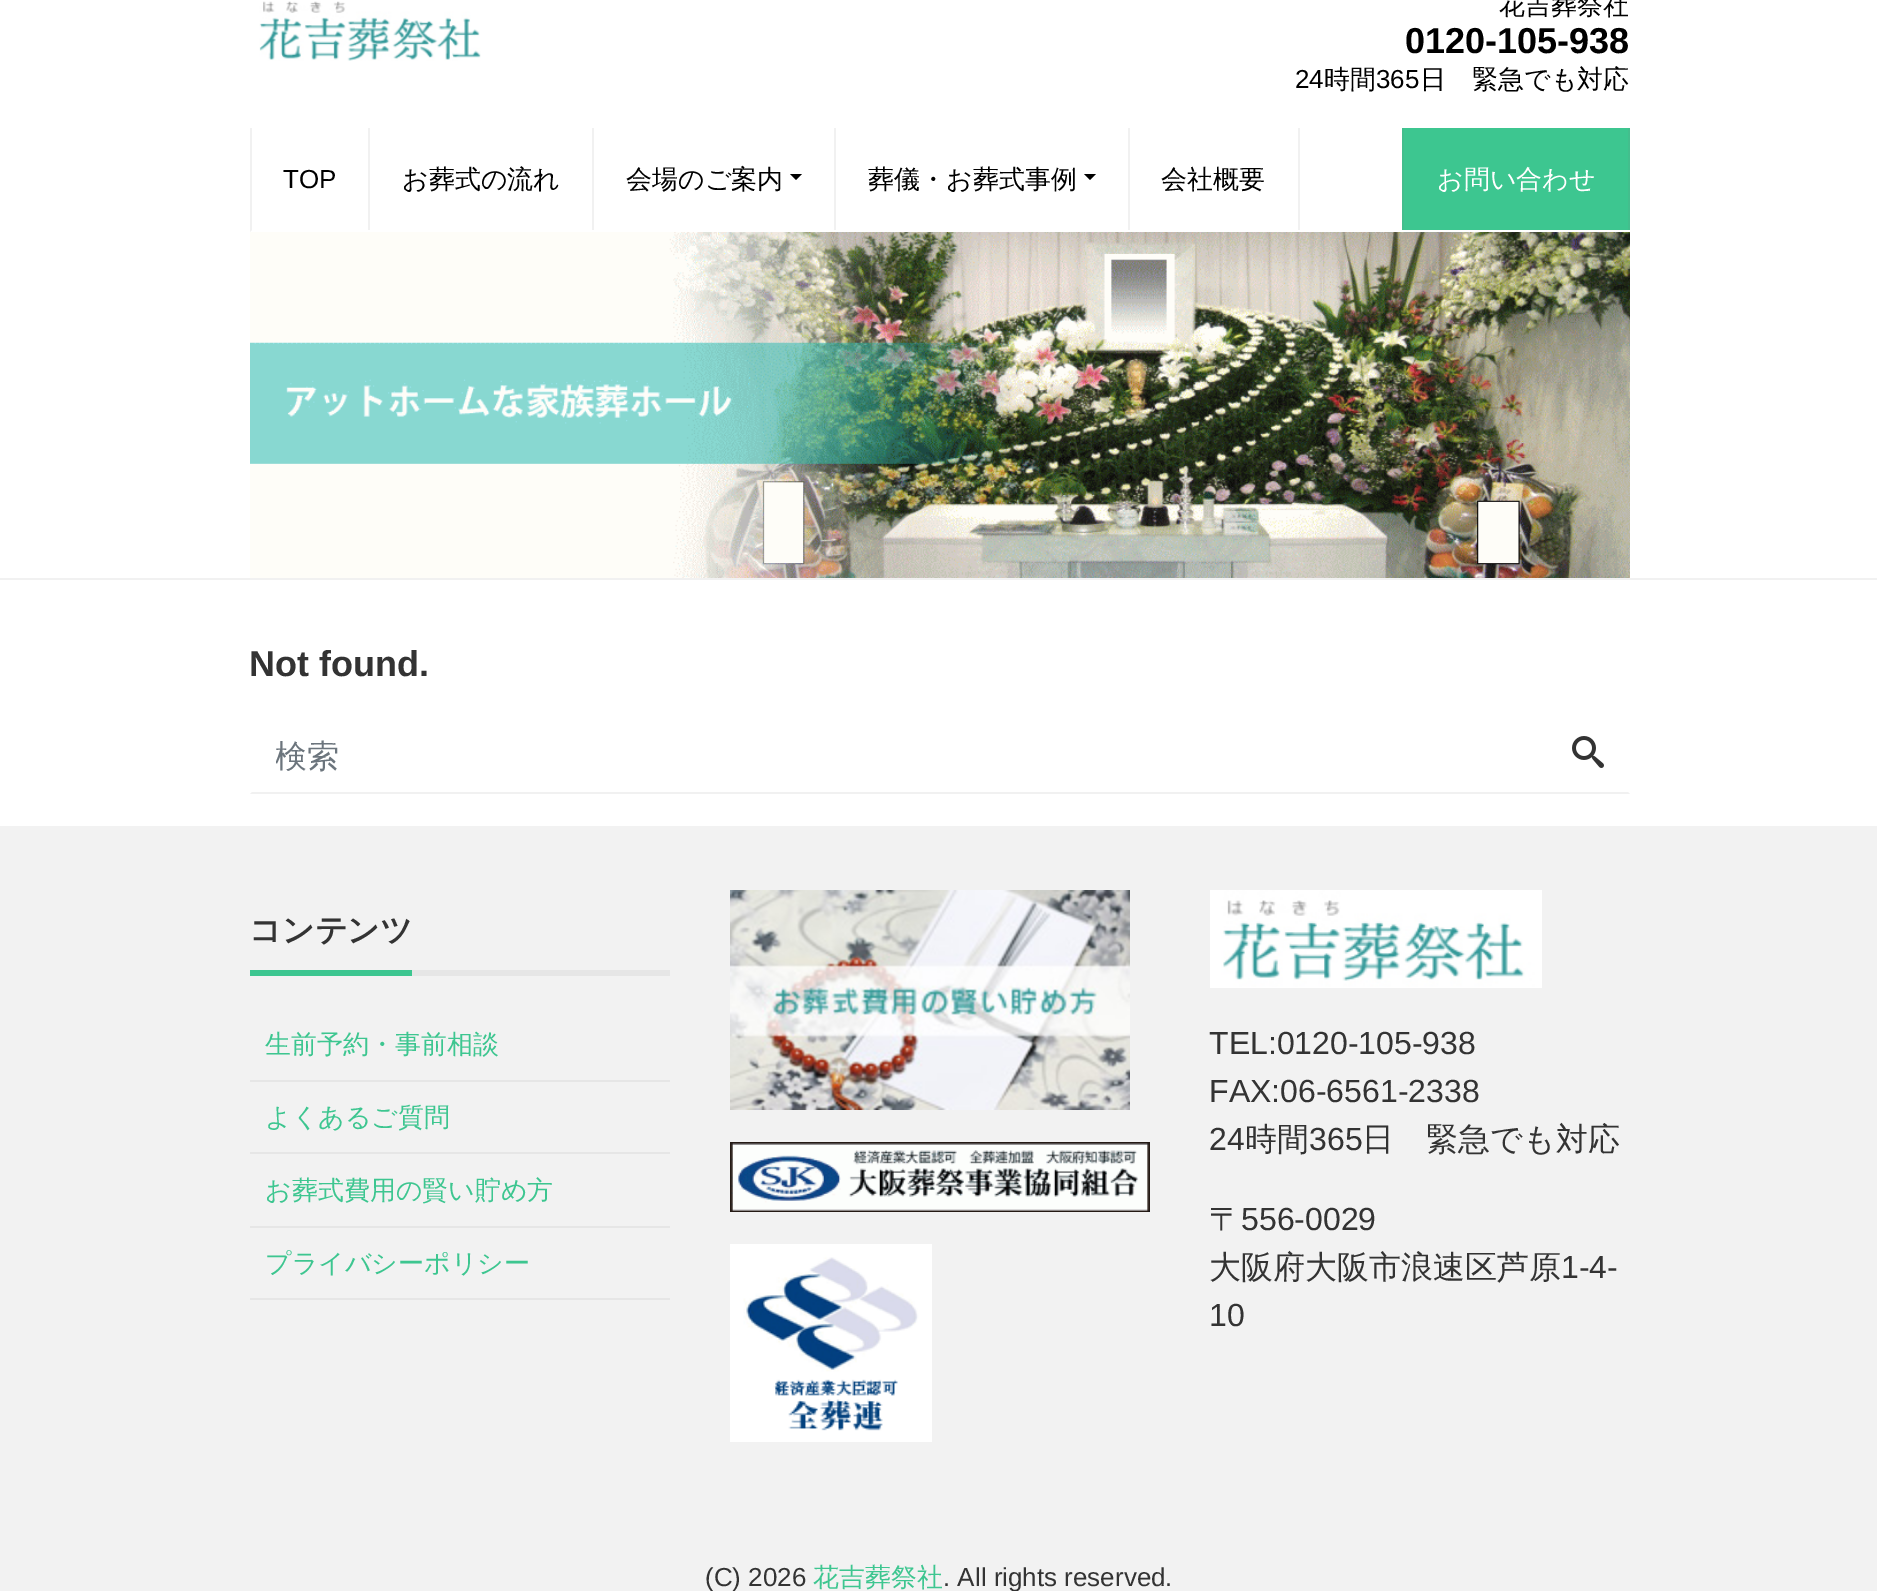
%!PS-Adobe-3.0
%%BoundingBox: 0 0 1877 1591
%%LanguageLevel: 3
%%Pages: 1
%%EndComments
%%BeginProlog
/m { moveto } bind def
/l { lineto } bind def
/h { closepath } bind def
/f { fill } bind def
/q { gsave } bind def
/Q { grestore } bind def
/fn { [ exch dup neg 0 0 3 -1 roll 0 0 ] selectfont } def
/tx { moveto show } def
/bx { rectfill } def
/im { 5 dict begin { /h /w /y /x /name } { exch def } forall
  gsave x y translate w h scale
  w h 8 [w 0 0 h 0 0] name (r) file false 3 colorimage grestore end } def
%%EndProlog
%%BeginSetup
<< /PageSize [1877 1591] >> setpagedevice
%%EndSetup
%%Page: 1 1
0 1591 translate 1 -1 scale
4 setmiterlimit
1 setgray
0 0 1877 1591 bx
(image0.raw) 259 1 222 60 im
/WenQuanYiZenHei-Medium 26 fn
0 setgray
(花吉葬祭社) 1499 14 tx
/LiberationSans-Bold 36 fn
(0120-105-938) 1405 53 tx
/LiberationSans-Regular 26 fn
(24) 1295 88 tx
/WenQuanYiZenHei-Medium 26 fn
(時間) 1324 88 tx
/LiberationSans-Regular 26 fn
(365) 1376 88 tx
/WenQuanYiZenHei-Medium 26 fn
(日　緊急でも対応) 1420 88 tx
0.945 setgray
0 578 1877 2 bx
250 232 m 250 128 l 252 128 l 252 230 l h f
368 128 2 102 bx
/LiberationSans-Regular 26 fn
0 setgray
(TOP) 283 188 tx
0.945 setgray
592 128 2 102 bx
/WenQuanYiZenHei-Medium 26 fn
0 setgray
(お葬式の流れ) 402 188 tx
0.945 setgray
834 128 2 102 bx
0 setgray
(会場のご案内) 626 188 tx
790 174 m 802 174 l 796 180 l h f
0.945 setgray
1128 128 2 102 bx
0 setgray
(葬儀・お葬式事例) 868 188 tx
1084 174 m 1096 174 l 1090 180 l h f
0.945 setgray
1298 128 2 102 bx
0 setgray
(会社概要) 1161 188 tx
0.239 0.776 0.565 setrgbcolor
1404 128 224 102 bx
0.263 0.745 0.553 setrgbcolor
1628 128 2 102 bx
1402 128 2 102 bx
1 setgray
(お問い合わせ) 1437 188 tx
(image1.raw) 250 232 1380 346 im
/LiberationSans-Bold 36 fn
0.2 setgray
(Not found.) 249 676 tx
0.945 setgray
1630 794 m 250 794 l 252 792 l 1628 792 l h f
q
276 736 1328 42 rectclip
/WenQuanYiZenHei-Medium 32 fn
0.424 0.459 0.49 setrgbcolor
(検索) 275 767 tx
Q
(image2.raw) 1572 736 32 32 im
0.949 setgray
0 826 1877 765 bx
0.902 setgray
412 970 258 6 bx
0.239 0.776 0.565 setrgbcolor
250 970 162 6 bx
/WenQuanYiZenHei-Bold 32 fn
0.2 setgray
(コンテンツ) 249 941 tx
0.902 setgray
250 1080 420 2 bx
/WenQuanYiZenHei-Medium 26 fn
0.239 0.776 0.565 setrgbcolor
(生前予約・事前相談) 265 1053 tx
0.902 setgray
250 1152 420 2 bx
0.239 0.776 0.565 setrgbcolor
(よくあるご質問) 265 1126 tx
0.902 setgray
250 1226 420 2 bx
0.239 0.776 0.565 setrgbcolor
(お葬式費用の賢い貯め方) 265 1199 tx
0.902 setgray
250 1298 420 2 bx
0.239 0.776 0.565 setrgbcolor
(プライバシーポリシー) 265 1272 tx
(image3.raw) 730 890 400 220 im
(image4.raw) 730 1142 420 70 im
(image5.raw) 730 1244 202 198 im
(image6.raw) 1210 890 332 98 im
/LiberationSans-Regular 32 fn
0.2 setgray
(TEL:0120-105-938) 1209 1054 tx
(FAX:06-6561-2338) 1209 1102 tx
(24) 1209 1150 tx
/WenQuanYiZenHei-Medium 32 fn
(時間) 1245 1150 tx
/LiberationSans-Regular 32 fn
(365) 1309 1150 tx
/WenQuanYiZenHei-Medium 32 fn
(日　緊急でも対応) 1362 1150 tx
(〒) 1209 1230 tx
/LiberationSans-Regular 32 fn
(556-0029) 1241 1230 tx
/WenQuanYiZenHei-Medium 32 fn
(大阪府大阪市浪速区芦原) 1209 1278 tx
/LiberationSans-Regular 32 fn
(1-4-) 1561 1278 tx
(10) 1209 1326 tx
/LiberationSans-Regular 26 fn
(\(C\) 2026) 705 1586 tx
/WenQuanYiZenHei-Medium 26 fn
0.239 0.776 0.565 setrgbcolor
(花吉葬祭社) 813 1586 tx
/LiberationSans-Regular 26 fn
0.2 setgray
(. All rights reserved.) 943 1586 tx
showpage
%%EOF
